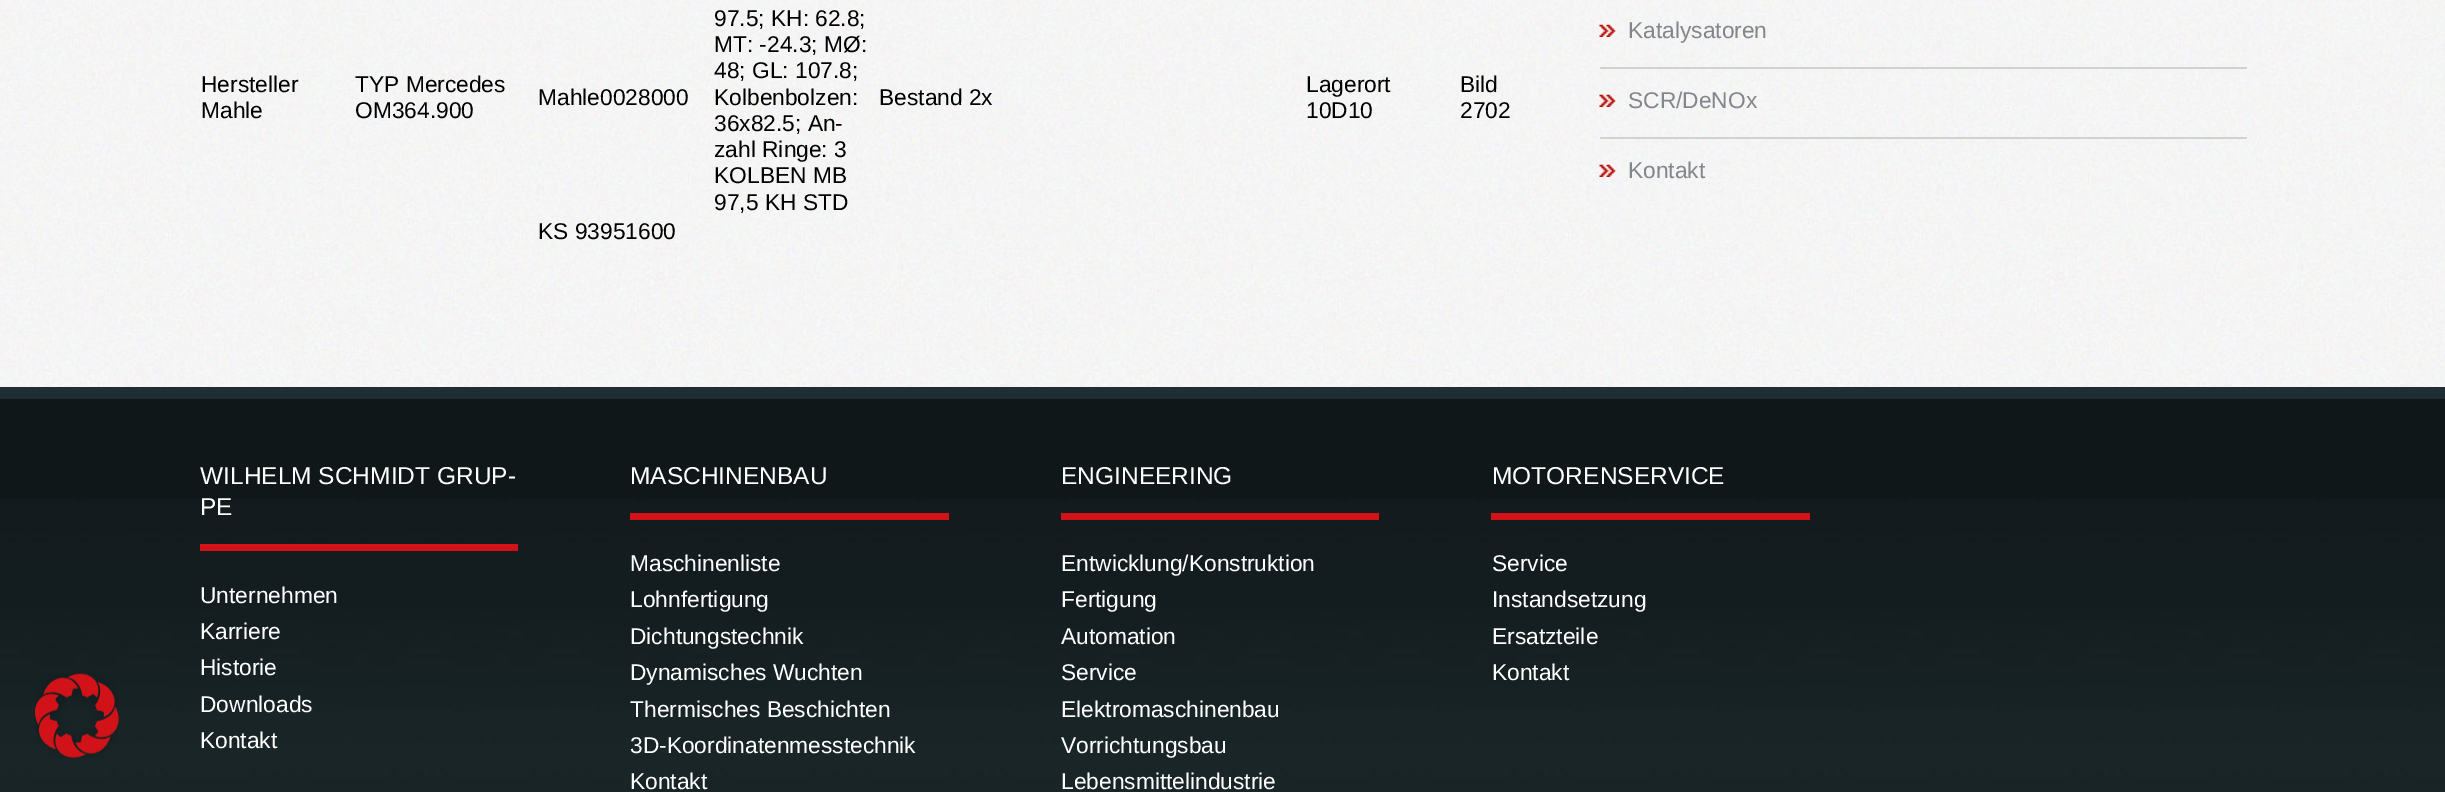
%!PS-Adobe-3.0
%%BoundingBox: 0 0 2445 792
%%LanguageLevel: 3
%%Pages: 1
%%EndComments
%%BeginProlog
/fn { [ exch dup neg 0 0 3 -1 roll 0 0 ] selectfont } def
/tx { moveto show } def
/bx { rectfill } def
/im { 5 dict begin { /h /w /y /x /name } { exch def } forall
  gsave x y translate w h scale
  w h 8 [w 0 0 h 0 0] name (r) file false 3 colorimage grestore end } def
%%EndProlog
%%BeginSetup
<< /PageSize [2445 792] >> setpagedevice
%%EndSetup
%%Page: 1 1
0 792 translate 1 -1 scale
4 setmiterlimit
0.063 0.09 0.098 setrgbcolor
0 0 2445 792 bx
(image5.raw) 0 499 2445 293 im
(image0.raw) 35 673 84 85 im
(image1.raw) 0 0 2445 387 im
/LiberationSans-Regular 22.75 fn
0 setgray
(Hersteller) 201 92 tx
(Mahle) 201 118 tx
(TYP Mercedes) 355 92 tx
(OM364.900) 355 118 tx
(Mahle0028000) 538 105 tx
(97.5; KH: 62.8;) 714 26 tx
(MT: -24.3; MØ:) 714 52 tx
(48; GL: 107.8;) 714 78 tx
(Kolbenbolzen:) 714 105 tx
(36x82.5; An-) 714 131 tx
(zahl Ringe: 3) 714 157 tx
(KOLBEN MB) 714 183 tx
(97,5 KH STD) 714 210 tx
(Bestand 2x) 879 105 tx
(Lagerort) 1306 92 tx
(10D10) 1306 118 tx
(Bild) 1460 92 tx
(2702) 1460 118 tx
(KS 93951600) 538 239 tx
(image2.raw) 1599 24 17 13 im
0.514 0.525 0.541 setrgbcolor
(Katalysatoren) 1628 38 tx
(image3.raw) 1599 94 17 13 im
0.82 setgray
1600 67 647 2 bx
0.514 0.525 0.541 setrgbcolor
(SCR/DeNOx) 1628 108 tx
(image4.raw) 1599 164 17 13 im
0.82 setgray
1600 137 647 2 bx
0.514 0.525 0.541 setrgbcolor
(Kontakt) 1628 178 tx
0.122 0.18 0.196 setrgbcolor
0 387 2445 12 bx
0.82 0.075 0.098 setrgbcolor
200 544 318 7 bx
/LiberationSans-Regular 24.5 fn
1 setgray
(WILHELM SCHMIDT GRUP-) 200 484 tx
(PE) 200 515 tx
/LiberationSans-Regular 22.75 fn
(Unternehmen) 200 603 tx
(Karriere) 200 639 tx
(Historie) 200 675 tx
(Downloads) 200 712 tx
(Kontakt) 200 748 tx
0.82 0.075 0.098 setrgbcolor
630 513 319 7 bx
/LiberationSans-Regular 24.5 fn
1 setgray
(MASCHINENBAU) 630 484 tx
/LiberationSans-Regular 22.75 fn
(Maschinenliste) 630 571 tx
(Lohnfertigung) 630 607 tx
(Dichtungstechnik) 630 644 tx
(Dynamisches Wuchten) 630 680 tx
(Thermisches Beschichten) 630 717 tx
(3D-Koordinatenmesstechnik) 630 753 tx
(Kontakt) 630 789 tx
0.82 0.075 0.098 setrgbcolor
1061 513 318 7 bx
/LiberationSans-Regular 24.5 fn
1 setgray
(ENGINEERING) 1061 484 tx
/LiberationSans-Regular 22.75 fn
(Entwicklung/Konstruktion) 1061 571 tx
(Fertigung) 1061 607 tx
(Automation) 1061 644 tx
(Service) 1061 680 tx
(Elektromaschinenbau) 1061 717 tx
(Vorrichtungsbau) 1061 753 tx
(Lebensmittelindustrie) 1061 789 tx
0.82 0.075 0.098 setrgbcolor
1491 513 319 7 bx
/LiberationSans-Regular 24.5 fn
1 setgray
(MOTORENSERVICE) 1492 484 tx
/LiberationSans-Regular 22.75 fn
(Service) 1492 571 tx
(Instandsetzung) 1492 607 tx
(Ersatzteile) 1492 644 tx
(Kontakt) 1492 680 tx
showpage
%%EOF
